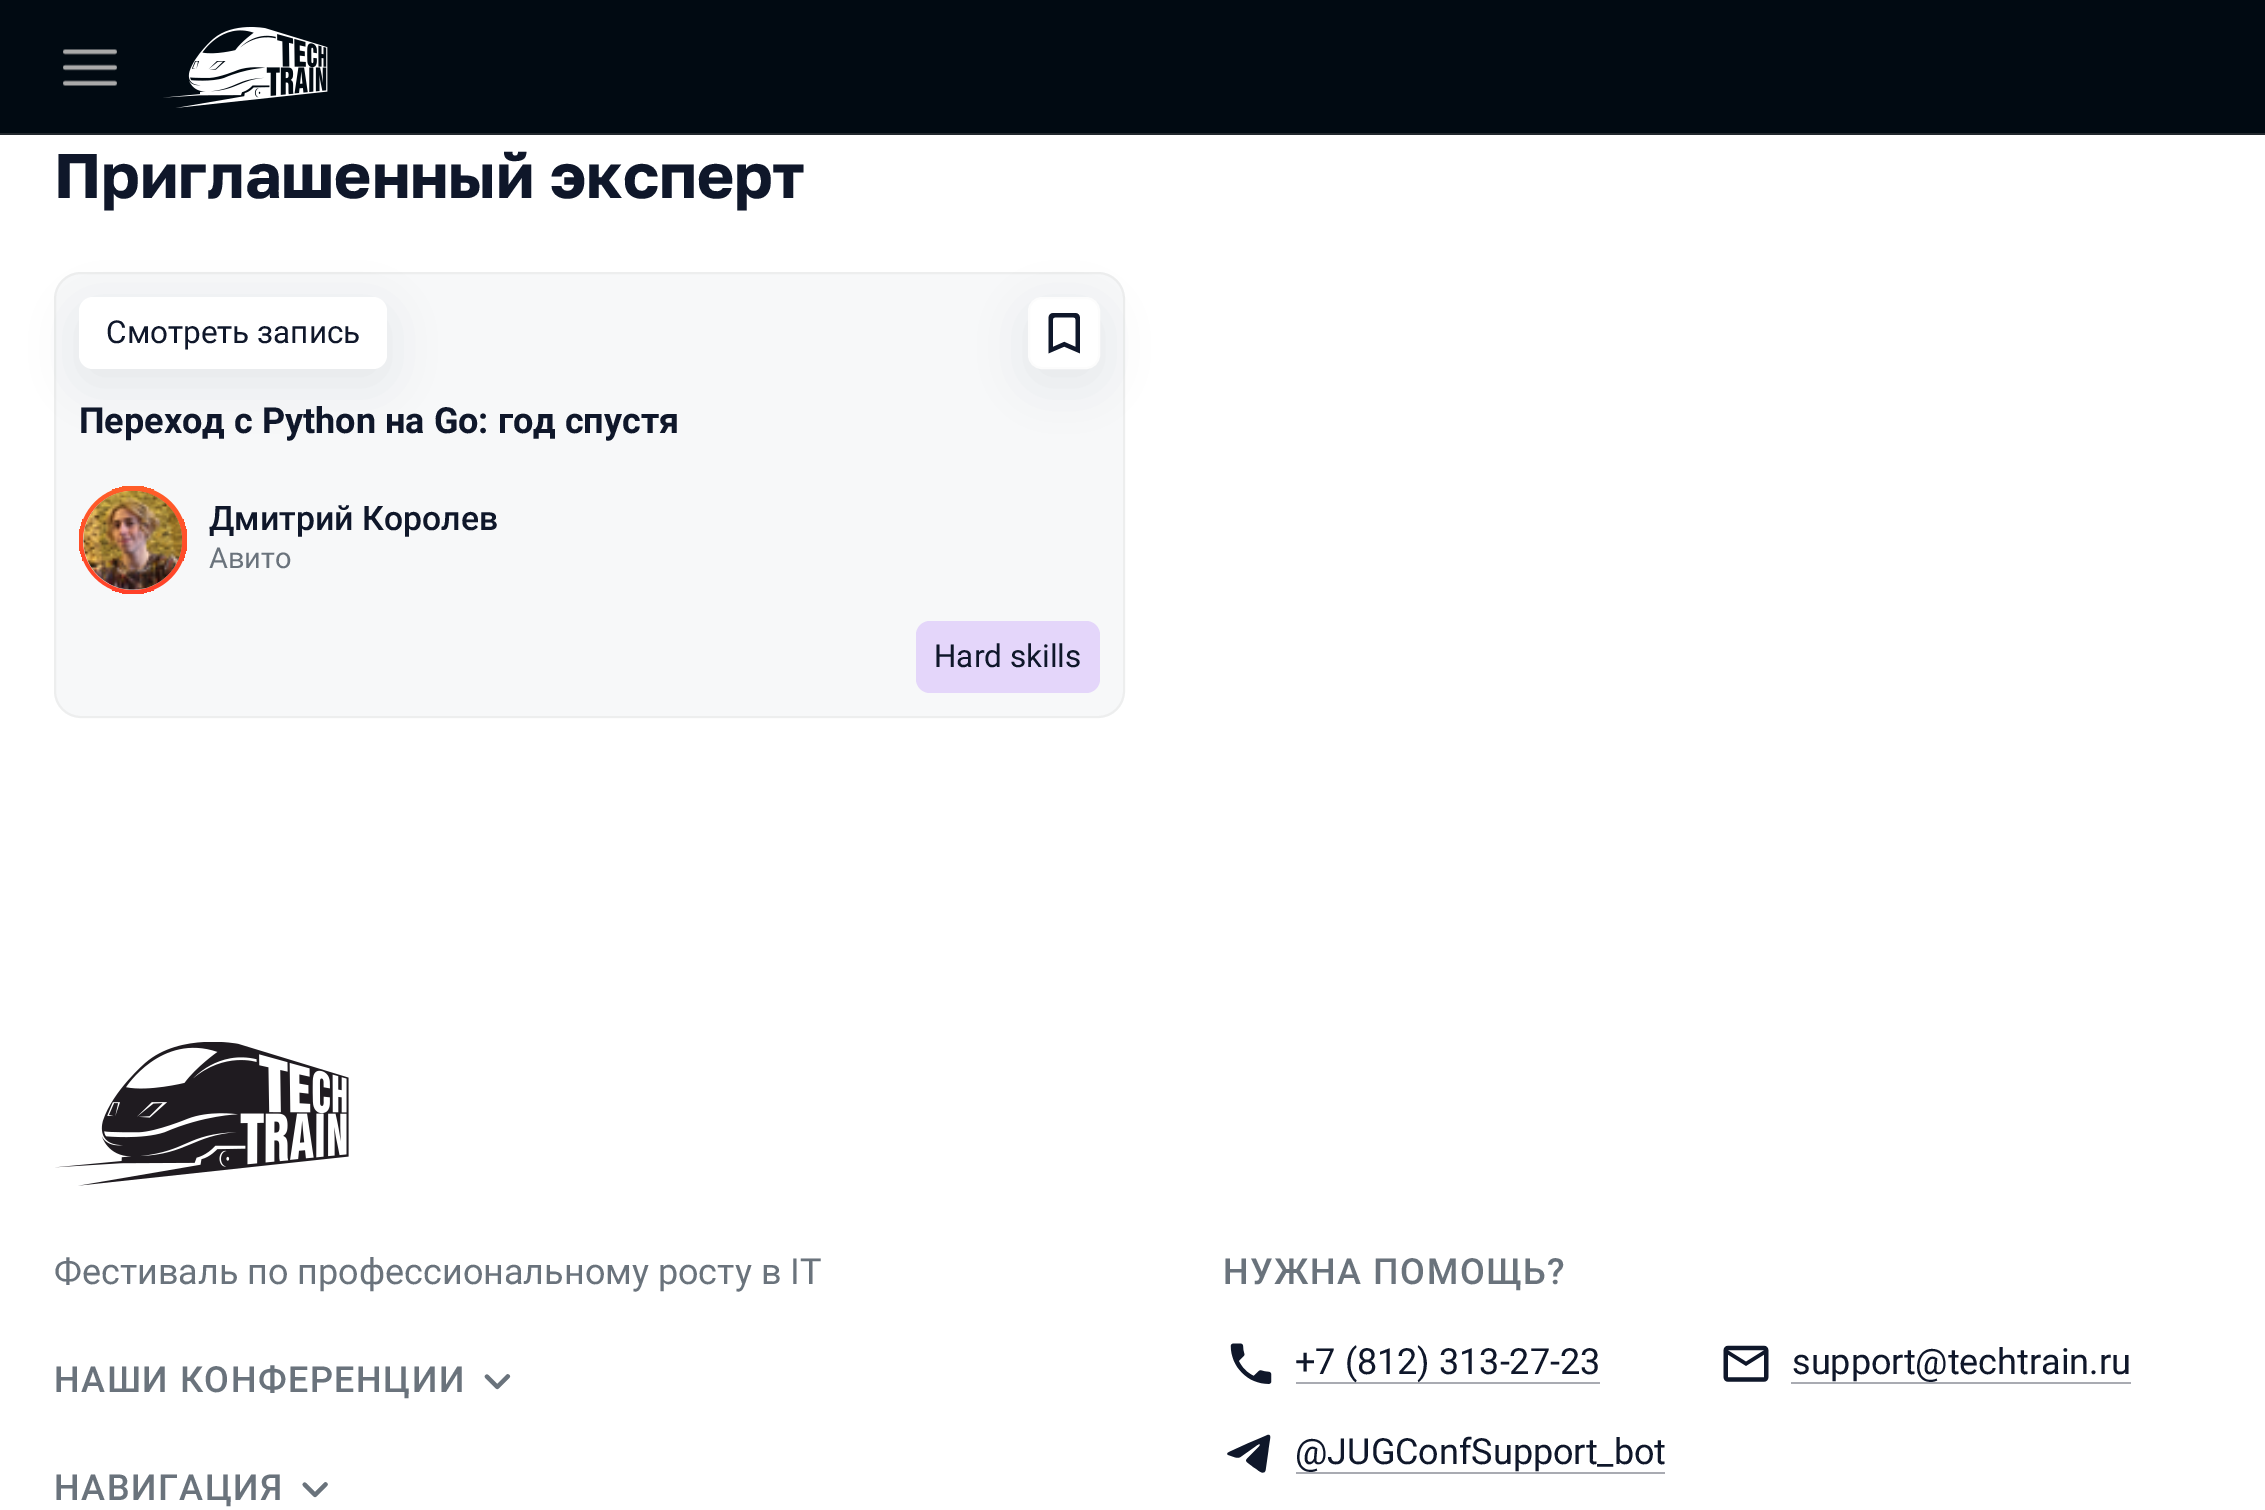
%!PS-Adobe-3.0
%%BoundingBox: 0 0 2265 1510
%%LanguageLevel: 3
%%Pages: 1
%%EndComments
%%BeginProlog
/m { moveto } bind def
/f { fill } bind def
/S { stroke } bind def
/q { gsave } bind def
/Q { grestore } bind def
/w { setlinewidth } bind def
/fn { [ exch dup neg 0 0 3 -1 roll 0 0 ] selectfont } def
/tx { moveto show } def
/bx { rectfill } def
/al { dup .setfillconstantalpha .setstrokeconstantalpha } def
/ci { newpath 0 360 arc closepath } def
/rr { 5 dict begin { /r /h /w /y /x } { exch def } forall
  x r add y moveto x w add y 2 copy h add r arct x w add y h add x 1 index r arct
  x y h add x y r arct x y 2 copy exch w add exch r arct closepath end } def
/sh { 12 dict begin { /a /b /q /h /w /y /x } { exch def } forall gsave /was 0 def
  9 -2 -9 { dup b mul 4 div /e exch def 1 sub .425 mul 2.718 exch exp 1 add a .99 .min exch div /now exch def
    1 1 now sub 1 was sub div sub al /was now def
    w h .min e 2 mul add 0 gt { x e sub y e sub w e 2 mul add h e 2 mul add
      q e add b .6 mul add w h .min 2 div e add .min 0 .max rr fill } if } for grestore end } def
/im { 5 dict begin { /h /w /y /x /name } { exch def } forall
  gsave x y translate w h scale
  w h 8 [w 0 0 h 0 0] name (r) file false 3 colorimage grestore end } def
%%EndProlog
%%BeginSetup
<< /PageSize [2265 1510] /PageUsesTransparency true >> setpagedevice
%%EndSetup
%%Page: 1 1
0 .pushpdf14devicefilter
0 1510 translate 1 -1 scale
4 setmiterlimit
1 setgray
0 0 2265 1510 bx
0.004 0.039 0.071 setrgbcolor
0 0 2265 133 bx
(image0.raw) 63 49 54 37 im
(image1.raw) 163 27 165 81 im
0.133 0.157 0.176 setrgbcolor
0 133 2265 2 bx
/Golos-Bold 63 fn
0.059 0.09 0.165 setrgbcolor
(Приглашенный эксперт) 54 198 tx
0.969 0.973 0.976 setrgbcolor
54 272 1071 446 27 rr f
0.28 al
0.827 setgray
2 w
55 273 1069 444 26 rr S
1 al
0.118 0.212 0.282 setrgbcolor
79 311 308 72 14 22.5 0.08 sh
1 setgray
79 297 308 72 14 rr f
/Roboto-Regular 31.5 fn
0.059 0.09 0.165 setrgbcolor
(Смотреть запись) 106 343 tx
0.118 0.212 0.282 setrgbcolor
1028 311 72 72 14 22.5 0.08 sh
1 setgray
1029 298 70 70 13 rr q f Q
0.988 setgray
S
(image2.raw) 1048 313 32 41 im
/Roboto-Bold 36 fn
0.059 0.09 0.165 setrgbcolor
(Переход с Python на Go: год спустя) 79 433 tx
q 133 540 54 ci clip newpath
<< /ShadingType 2 /ColorSpace /DeviceRGB /Coords [133 486 133 594] /Extend [true true] /Function << /FunctionType 2 /Domain [0 1] /C0 [1 0.369 0.161] /C1 [1 0.255 0.161] /N 1 >> >> shfill Q
0.945 setgray
132.5 540.5 49.5 ci f
(image3.raw) 83 490 100 100 im
/Roboto-Medium 33.75 fn
0.059 0.09 0.165 setrgbcolor
(Дмитрий Королев) 209 530 tx
/Roboto-Regular 29 fn
0.416 0.451 0.486 setrgbcolor
(Авито) 209 568 tx
0.894 0.839 0.98 setrgbcolor
916 621 184 72 14 rr f
/Roboto-Regular 31.5 fn
0.059 0.09 0.165 setrgbcolor
(Hard skills) 934 667 tx
(image4.raw) 55 1042 294 144 im
/Roboto-Regular 36 fn
0.416 0.451 0.486 setrgbcolor
(Фестиваль по профессиональному росту в IT) 54 1284 tx
/Roboto-Medium 36 fn
54 1392 m 1.5 0 (НАШИ КОНФЕРЕНЦИИ) ashow
(image5.raw) 484 1374 27 16 im
54 1500 m 1.5 0 (НАВИГАЦИЯ) ashow
(image6.raw) 302 1482 26 16 im
1223 1284 m 1.5 0 (НУЖНА ПОМОЩЬ?) ashow
(image7.raw) 1230 1343 42 41 im
0.663 0.671 0.698 setrgbcolor
1296 1382 304 2 bx
/Roboto-Regular 36 fn
0.059 0.09 0.165 setrgbcolor
(+7 \(812\) 313-27-23) 1295 1374 tx
(image8.raw) 1723 1345 46 37 im
(support@techtrain.ru) 1792 1374 tx
0.663 0.671 0.698 setrgbcolor
1791 1382 340 2 bx
(image9.raw) 1227 1434 44 39 im
0.059 0.09 0.165 setrgbcolor
(@JUGConfSupport_bot) 1295 1464 tx
0.663 0.671 0.698 setrgbcolor
1296 1472 369 2 bx
.poppdf14devicefilter showpage
%%EOF
